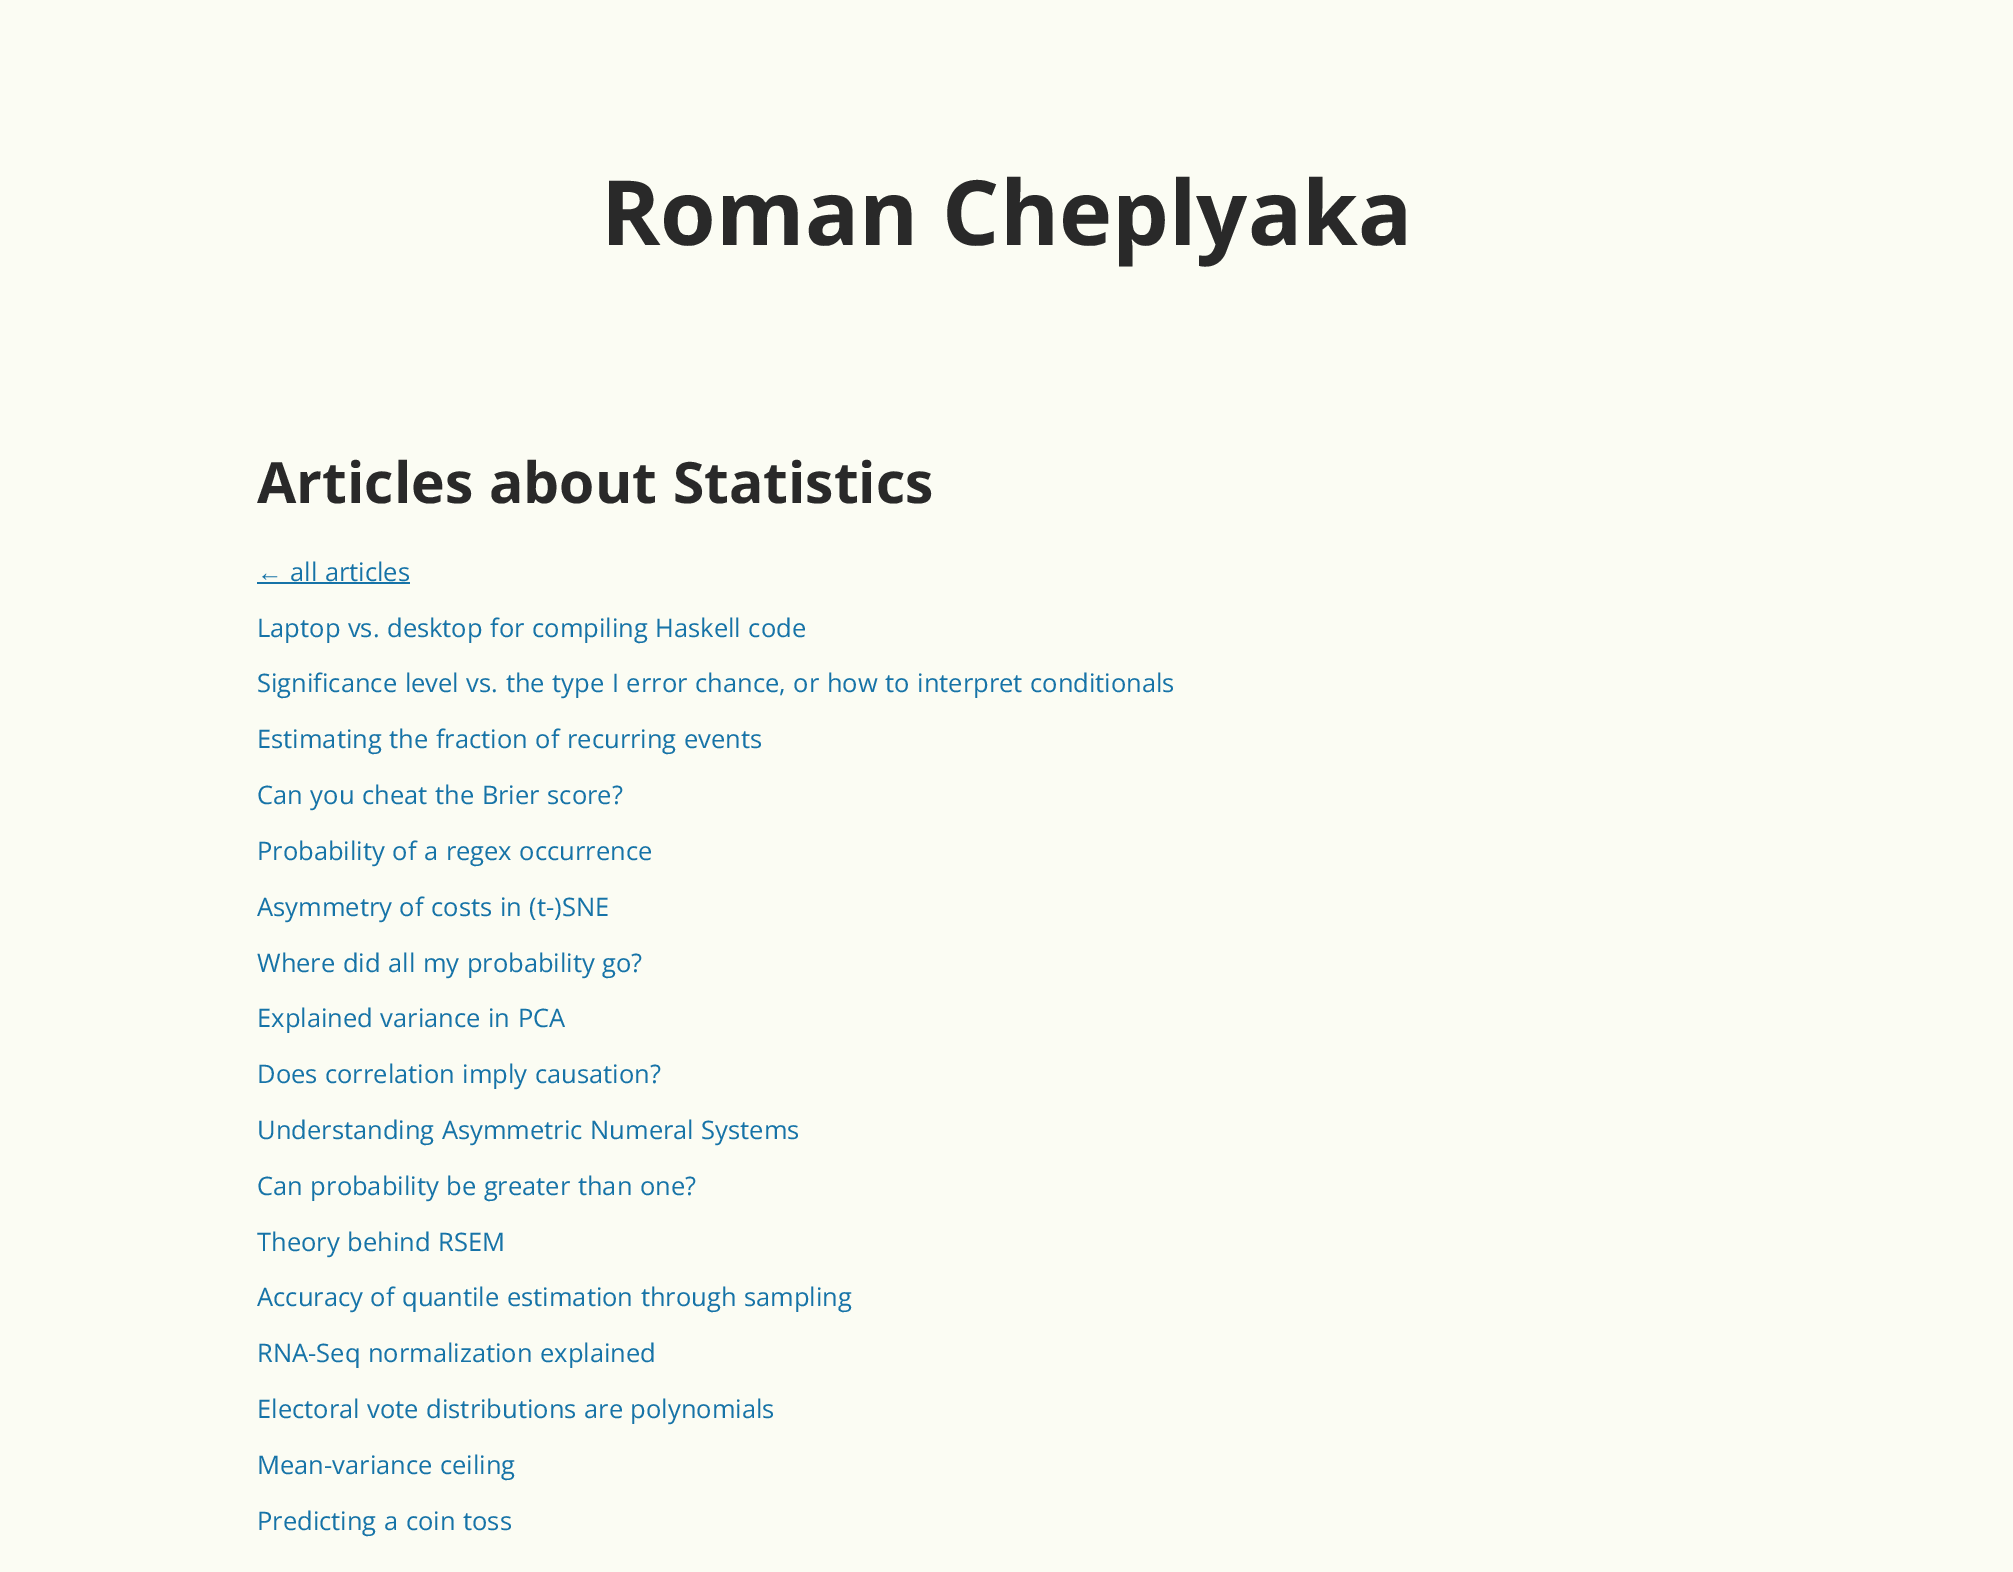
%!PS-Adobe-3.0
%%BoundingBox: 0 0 2013 1572
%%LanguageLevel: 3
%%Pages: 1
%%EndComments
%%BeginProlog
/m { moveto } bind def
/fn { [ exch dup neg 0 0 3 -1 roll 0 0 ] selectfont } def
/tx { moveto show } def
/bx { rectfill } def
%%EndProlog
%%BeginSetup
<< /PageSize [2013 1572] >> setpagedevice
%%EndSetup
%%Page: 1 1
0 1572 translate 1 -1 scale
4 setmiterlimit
0.984 0.988 0.953 setrgbcolor
0 0 2013 1572 bx
/OpenSans-Bold 90 fn
0.161 setgray
601 245 m 1 0 32 (Roman Cheplyaka) widthshow
/OpenSans-Bold 57 fn
257 503 m 1 0 32 (Articles about Statistics) widthshow
/LiberationSans-Regular 25.5 fn
0.086 0.451 0.655 setrgbcolor
(←) 257 581 tx
257 582 153 2 bx
/OpenSans-Regular 25.5 fn
290 581 m 1 0 32 (all articles) widthshow
257 637 m 1 0 32 (Laptop vs. desktop for compiling Haskell code) widthshow
257 692 m 1 0 32 (Significance level vs. the type I error chance, or how to interpret conditionals) widthshow
257 748 m 1 0 32 (Estimating the fraction of recurring events) widthshow
257 804 m 1 0 32 (Can you cheat the Brier score?) widthshow
257 860 m 1 0 32 (Probability of a regex occurrence) widthshow
257 916 m 1 0 32 (Asymmetry of costs in \(t-\)SNE) widthshow
257 972 m 1 0 32 (Where did all my probability go?) widthshow
257 1027 m 1 0 32 (Explained variance in PCA) widthshow
257 1083 m 1 0 32 (Does correlation imply causation?) widthshow
257 1139 m 1 0 32 (Understanding Asymmetric Numeral Systems) widthshow
257 1195 m 1 0 32 (Can probability be greater than one?) widthshow
257 1251 m 1 0 32 (Theory behind RSEM) widthshow
257 1306 m 1 0 32 (Accuracy of quantile estimation through sampling) widthshow
257 1362 m 1 0 32 (RNA-Seq normalization explained) widthshow
257 1418 m 1 0 32 (Electoral vote distributions are polynomials) widthshow
257 1474 m 1 0 32 (Mean-variance ceiling) widthshow
257 1530 m 1 0 32 (Predicting a coin toss) widthshow
showpage
%%EOF
